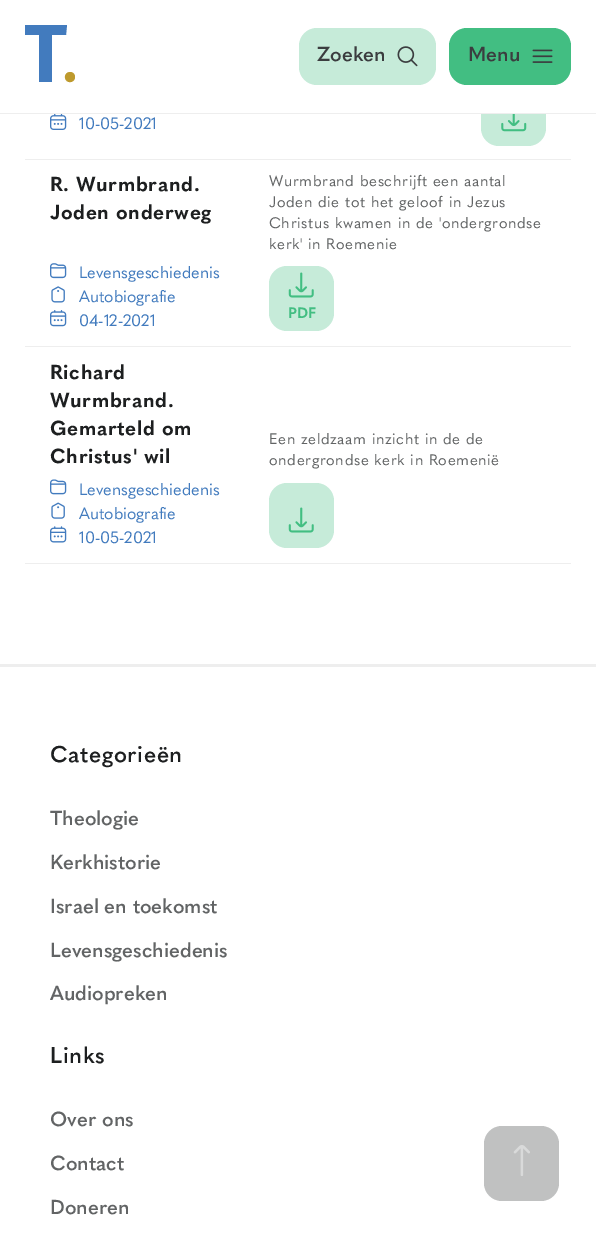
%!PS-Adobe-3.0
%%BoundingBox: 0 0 596 1238
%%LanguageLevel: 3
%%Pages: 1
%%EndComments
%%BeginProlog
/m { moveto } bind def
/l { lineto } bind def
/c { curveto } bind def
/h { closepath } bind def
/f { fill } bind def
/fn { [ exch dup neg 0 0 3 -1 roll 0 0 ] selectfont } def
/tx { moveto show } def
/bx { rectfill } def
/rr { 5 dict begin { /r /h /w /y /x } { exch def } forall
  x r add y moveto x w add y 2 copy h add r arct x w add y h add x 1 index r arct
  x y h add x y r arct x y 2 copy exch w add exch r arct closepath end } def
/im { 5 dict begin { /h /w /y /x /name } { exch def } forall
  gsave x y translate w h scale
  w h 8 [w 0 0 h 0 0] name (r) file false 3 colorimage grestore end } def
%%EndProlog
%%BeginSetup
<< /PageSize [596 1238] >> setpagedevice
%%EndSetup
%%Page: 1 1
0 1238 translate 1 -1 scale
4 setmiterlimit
1 setgray
0 0 596 1238 bx
0.776 0.922 0.851 setrgbcolor
481 81 65 65 18 rr f
1 setgray
481 81 65 32 bx
0.933 setgray
0 113 596 1 bx
0.259 0.482 0.745 setrgbcolor
67 25 m 66 35 l 52 35 l 52 82 l 39 82 l 39 35 l 25 35 l 25 25 l h f
0.745 0.604 0.176 setrgbcolor
75 77 m 75 83.5 65.5 84 65 77.5 c 64.5 70.5 75 70 75 77 c h f
0.776 0.922 0.851 setrgbcolor
299 28 137 57 18 rr f
/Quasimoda-SemiBold 20 fn
0.231 0.239 0.247 setrgbcolor
(Zoeken) 317 61 tx
(image0.raw) 397 46 21 21 im
0.259 0.745 0.51 setrgbcolor
449 28 122 57 18 rr f
0.231 0.239 0.247 setrgbcolor
(Menu) 468 61 tx
(image1.raw) 532 49 21 14 im
0.933 setgray
25 159 546 1 bx
(image2.raw) 50 114 17 16 im
/Quasimoda-Regular 16.25 fn
0.259 0.482 0.745 setrgbcolor
(10-05-2021) 79 129 tx
(image3.raw) 501 114 26 18 im
0.933 setgray
25 346 546 1 bx
/Quasimoda-Bold 20 fn
0.114 0.122 0.125 setrgbcolor
50 191 m 0.6 0 (R. Wurmbrand.) ashow
50 219 m 0.6 0 (Joden onderweg) ashow
/Quasimoda-Regular 15 fn
0.384 0.392 0.396 setrgbcolor
269 186 m 0.6 0 (Wurmbrand beschrijft een aantal) ashow
269 207 m 0.6 0 (Joden die tot het geloof in Jezus) ashow
269 228 m 0.6 0 (Christus kwamen in de 'ondergrondse) ashow
269 249 m 0.6 0 (kerk' in Roemenie) ashow
(image4.raw) 50 263 17 16 im
/Quasimoda-Regular 16.25 fn
0.259 0.482 0.745 setrgbcolor
(Levensgeschiedenis) 79 278 tx
(image5.raw) 51 286 14 17 im
(Autobiografie) 79 302 tx
(image6.raw) 50 310 17 17 im
(04-12-2021) 79 326 tx
0.776 0.922 0.851 setrgbcolor
269 266 65 65 18 rr f
(image7.raw) 288 272 26 26 im
/Quasimoda-Bold 15 fn
0.259 0.745 0.51 setrgbcolor
(PDF) 288 318 tx
0.933 setgray
25 563 546 1 bx
/Quasimoda-Bold 20 fn
0.114 0.122 0.125 setrgbcolor
50 379 m 0.6 0 (Richard) ashow
50 407 m 0.6 0 (Wurmbrand.) ashow
50 435 m 0.6 0 (Gemarteld om) ashow
50 463 m 0.6 0 (Christus' wil) ashow
/Quasimoda-Regular 15 fn
0.384 0.392 0.396 setrgbcolor
269 444 m 0.6 0 (Een zeldzaam inzicht in de de) ashow
269 465 m 0.6 0 (ondergrondse kerk in Roemenië) ashow
(image8.raw) 50 479 17 16 im
/Quasimoda-Regular 16.25 fn
0.259 0.482 0.745 setrgbcolor
(Levensgeschiedenis) 79 495 tx
(image9.raw) 51 502 14 17 im
(Autobiografie) 79 519 tx
(image10.raw) 50 526 17 17 im
(10-05-2021) 79 543 tx
0.776 0.922 0.851 setrgbcolor
269 483 65 65 18 rr f
(image7.raw) 288 507 26 26 im
0.933 setgray
0 664 596 3 bx
/Quasimoda-SemiBold 22.5 fn
0.114 0.122 0.125 setrgbcolor
50 762 m 0.6 0 (Categorieën) ashow
/Quasimoda-SemiBold 20 fn
0.384 0.392 0.396 setrgbcolor
(Theologie) 50 825 tx
(Kerkhistorie) 50 869 tx
(Israel en toekomst) 50 913 tx
(Levensgeschiedenis) 50 957 tx
(Audiopreken) 50 1000 tx
/Quasimoda-SemiBold 22.5 fn
0.114 0.122 0.125 setrgbcolor
50 1063 m 0.6 0 (Links) ashow
/Quasimoda-SemiBold 20 fn
0.384 0.392 0.396 setrgbcolor
(Over ons) 50 1126 tx
(Contact) 50 1170 tx
(Doneren) 50 1214 tx
0.753 0.757 0.757 setrgbcolor
484 1126 75 75 18 rr f
(image11.raw) 513 1145 17 31 im
showpage
%%EOF
